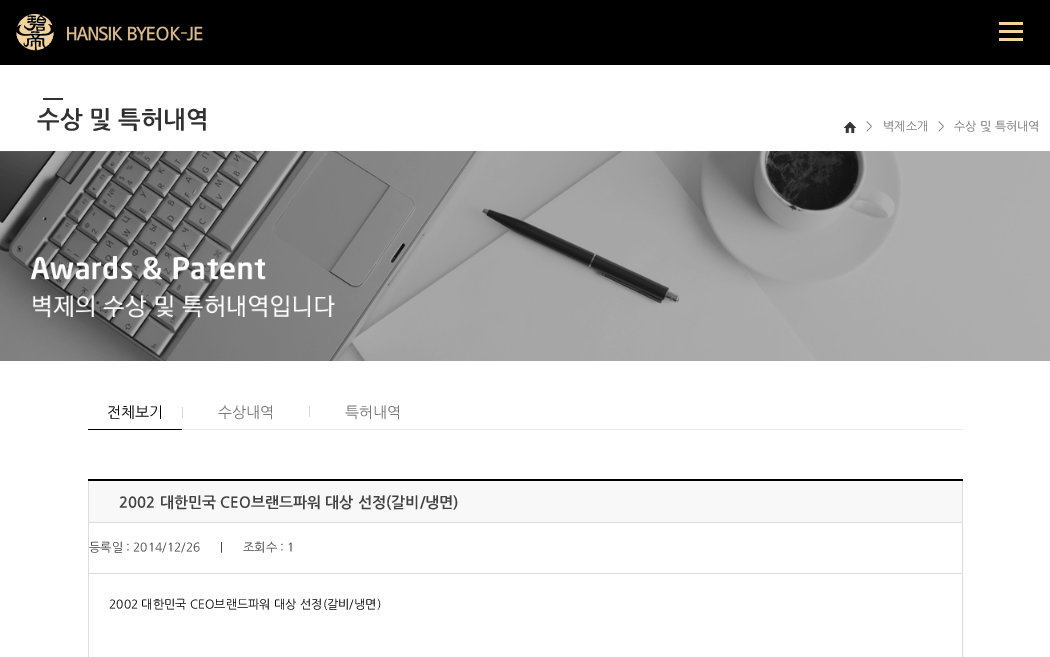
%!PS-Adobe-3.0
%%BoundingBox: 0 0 1050 657
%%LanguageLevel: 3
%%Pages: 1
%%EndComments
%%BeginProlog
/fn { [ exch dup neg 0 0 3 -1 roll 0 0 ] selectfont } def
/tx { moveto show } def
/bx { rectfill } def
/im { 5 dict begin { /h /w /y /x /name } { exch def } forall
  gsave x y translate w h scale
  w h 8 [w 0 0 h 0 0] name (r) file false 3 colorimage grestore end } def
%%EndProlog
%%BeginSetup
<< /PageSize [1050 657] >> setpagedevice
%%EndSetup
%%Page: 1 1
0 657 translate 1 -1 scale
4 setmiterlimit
1 setgray
0 0 1050 657 bx
0 setgray
0 0 1050 65 bx
(image0.raw) 16 14 187 37 im
(image1.raw) 999 22 24 19 im
0.192 setgray
43 98 20 2 bx
/NanumGothic-Bold 24 fn
(수상 및 특허내역) 37 127 tx
(image2.raw) 844 122 12 11 im
/NanumGothic-Regular 12 fn
0.471 setgray
(>) 866 130 tx
(벽제소개) 883 130 tx
(>) 938 130 tx
(수상 및 특허내역) 954 130 tx
(image3.raw) 0 151 1050 210 im
0.918 setgray
182 429 781 1 bx
0.847 setgray
182 407 1 11 bx
0 setgray
88 429 94 1 bx
/NanumGothic-Regular 15 fn
(전체보기) 107 417 tx
0.847 setgray
309 406 1 11 bx
0.471 setgray
(수상내역) 218 417 tx
(특허내역) 345 417 tx
0.867 setgray
88 522 875 1 bx
88 573 875 1 bx
962 573 1 84 bx
962 479 1 95 bx
88 573 1 84 bx
88 479 1 95 bx
0 setgray
88 479 875 2 bx
0.973 setgray
89 481 873 41 bx
/NanumGothic-Bold 15 fn
0.263 setgray
(2002 대한민국 CEO브랜드파워 대상 선정\(갈비/냉면\)) 119 507 tx
/NanumGothic-Regular 12 fn
(등록일 : 2014/12/26) 89 551 tx
(|) 220 551 tx
(조회수 : 1) 243 551 tx
0 setgray
(2002 대한민국 CEO브랜드파워 대상 선정\(갈비/냉면\)) 109 608 tx
showpage
%%EOF
